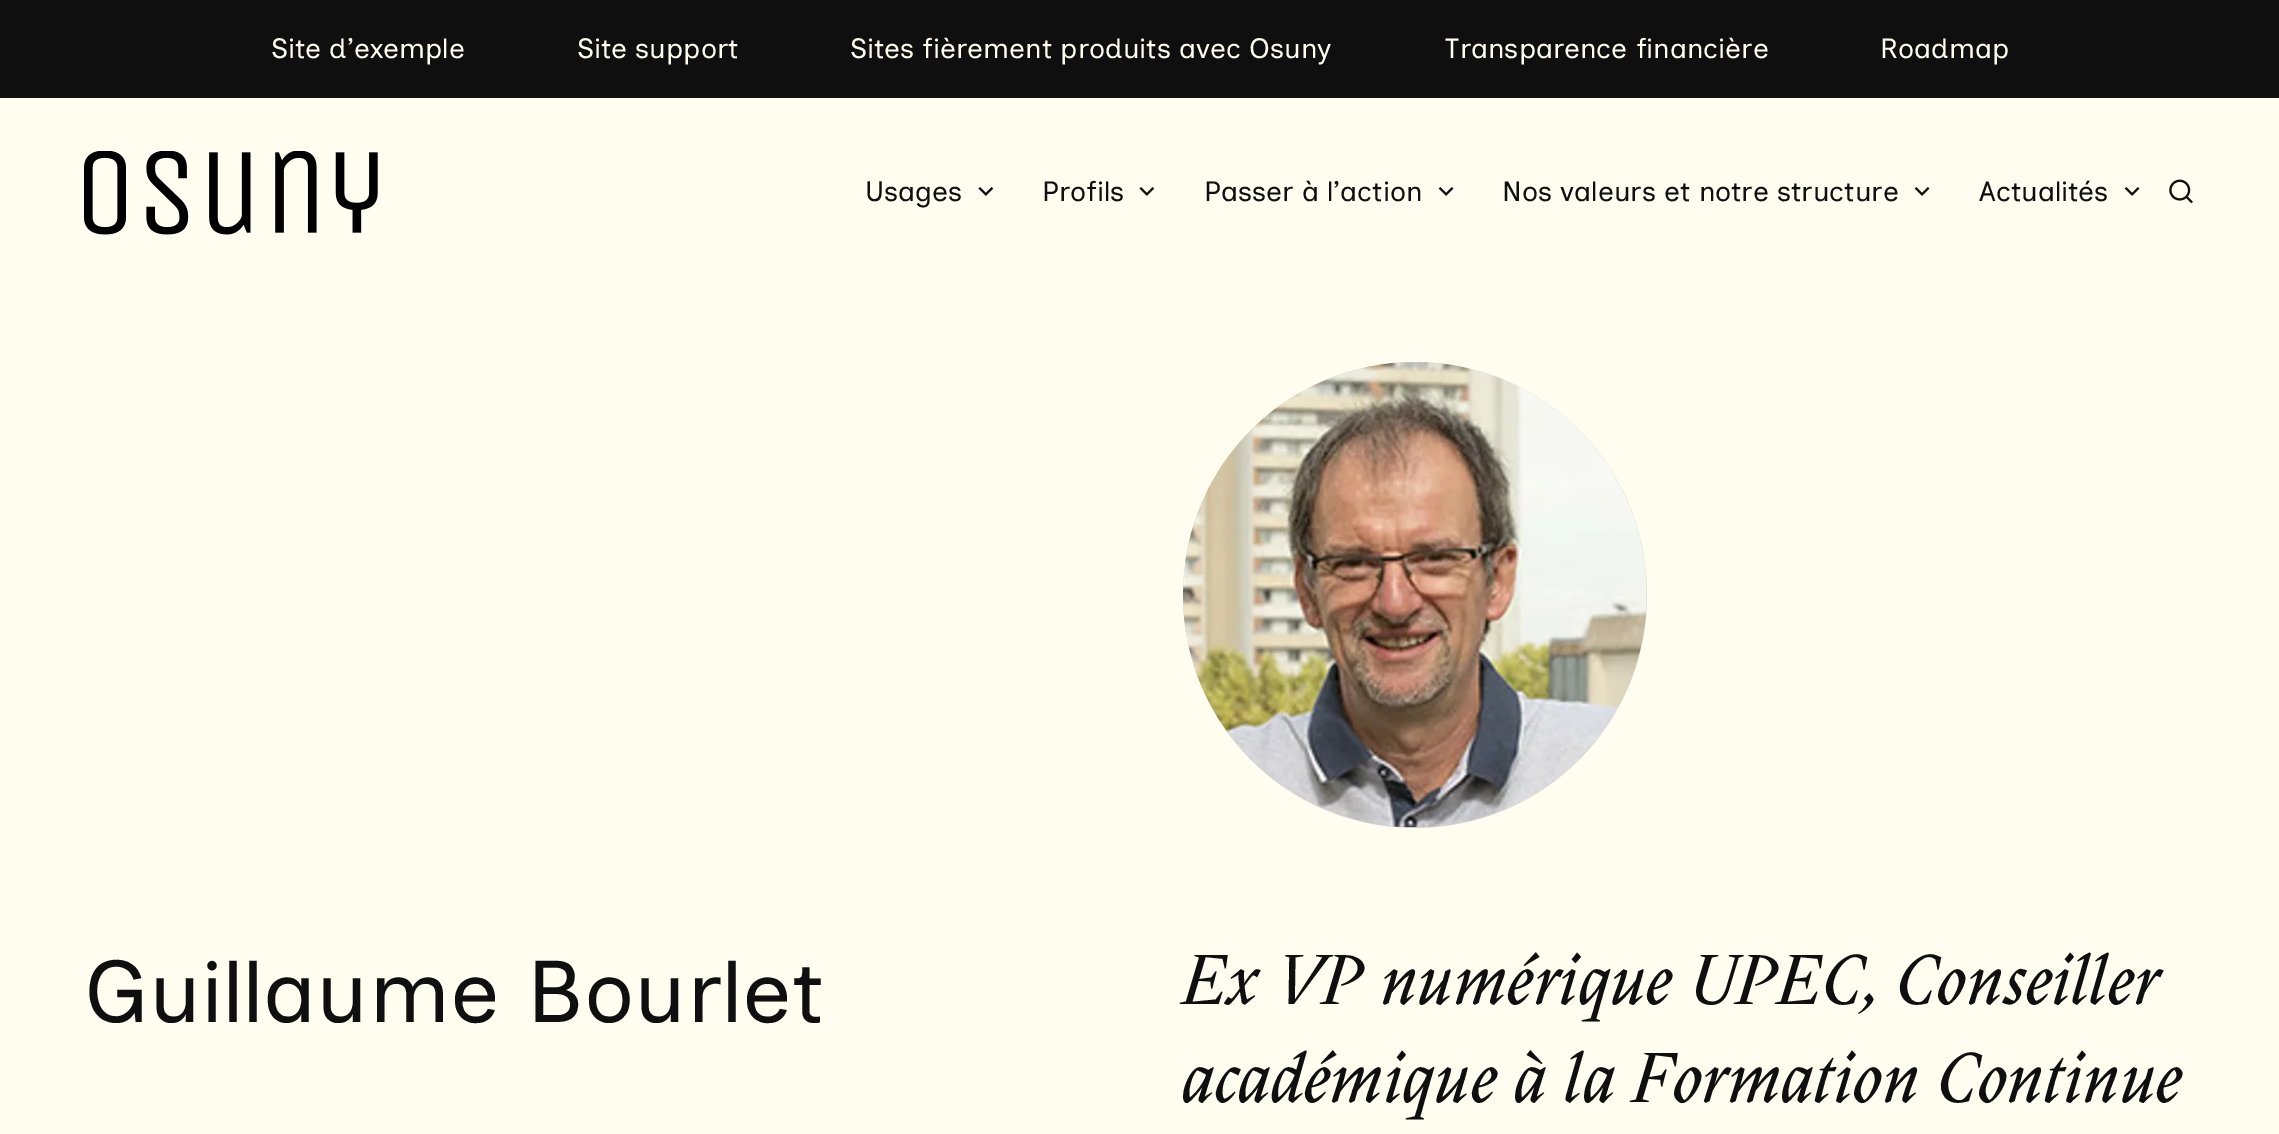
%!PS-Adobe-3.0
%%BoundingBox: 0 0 2279 1134
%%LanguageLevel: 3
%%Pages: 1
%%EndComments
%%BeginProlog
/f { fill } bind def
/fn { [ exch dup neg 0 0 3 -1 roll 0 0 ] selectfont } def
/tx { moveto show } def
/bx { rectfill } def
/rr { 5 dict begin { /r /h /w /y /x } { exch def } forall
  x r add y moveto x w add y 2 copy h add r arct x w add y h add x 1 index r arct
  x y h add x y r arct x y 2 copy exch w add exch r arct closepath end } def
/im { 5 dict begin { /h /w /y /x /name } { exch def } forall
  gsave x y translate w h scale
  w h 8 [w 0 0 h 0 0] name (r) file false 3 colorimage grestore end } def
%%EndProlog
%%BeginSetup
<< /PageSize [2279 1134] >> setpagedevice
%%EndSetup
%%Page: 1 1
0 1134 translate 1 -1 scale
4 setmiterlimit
1 0.988 0.941 setrgbcolor
0 0 2279 1134 bx
0.063 0.059 0.059 setrgbcolor
0 0 2279 98 bx
/InclusiveSans-Regular 28 fn
1 0.988 0.941 setrgbcolor
(Site d’exemple) 271 58 tx
(Site support) 577 58 tx
(Sites fièrement produits avec Osuny) 850 58 tx
(Transparence financière) 1444 58 tx
(Roadmap) 1880 58 tx
(image0.raw) 84 151 294 84 im
0.063 0.059 0.059 setrgbcolor
(Usages) 865 201 tx
(image1.raw) 978 187 16 9 im
(Profils) 1042 201 tx
(image1.raw) 1139 187 16 9 im
(Passer à l’action) 1204 201 tx
(image2.raw) 1438 187 16 9 im
(Nos valeurs et notre structure) 1502 201 tx
(image2.raw) 1914 187 16 9 im
(Actualités) 1979 201 tx
(image2.raw) 2124 187 16 9 im
(image3.raw) 2169 179 24 25 im
0.855 0.847 0.808 setrgbcolor
1183 362 464 466 232 rr f
(image4.raw) 1183 362 464 466 im
/InclusiveSans-Regular 87.5 fn
0.063 0.059 0.059 setrgbcolor
(Guillaume Bourlet) 84 1022 tx
/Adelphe-ThinItalic 70 fn
(Ex VP numérique UPEC, Conseiller) 1182 1004 tx
(académique à la Formation Continue) 1182 1102 tx
showpage
%%EOF
